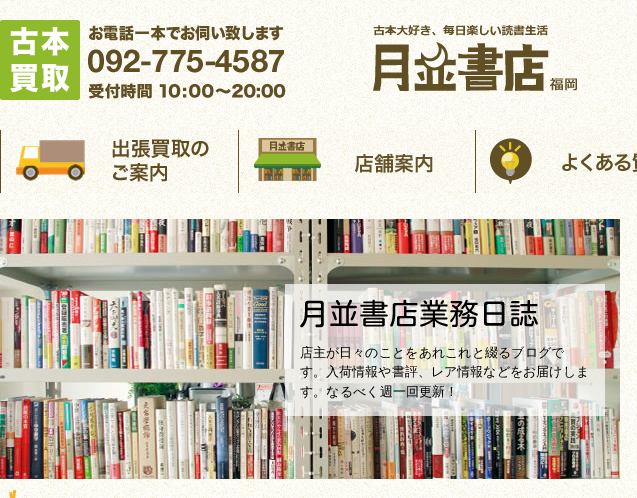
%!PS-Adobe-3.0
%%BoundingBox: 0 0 637 498
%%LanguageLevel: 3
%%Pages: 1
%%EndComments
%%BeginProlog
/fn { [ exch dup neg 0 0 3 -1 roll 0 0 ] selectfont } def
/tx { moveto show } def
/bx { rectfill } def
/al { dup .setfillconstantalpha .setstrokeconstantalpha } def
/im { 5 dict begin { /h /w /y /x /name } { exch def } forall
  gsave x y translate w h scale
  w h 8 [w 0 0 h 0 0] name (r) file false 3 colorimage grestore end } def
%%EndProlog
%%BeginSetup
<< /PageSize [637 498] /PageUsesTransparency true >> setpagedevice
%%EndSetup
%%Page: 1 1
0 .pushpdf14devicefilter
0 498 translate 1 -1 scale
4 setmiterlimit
1 setgray
0 0 637 498 bx
(image0.raw) 0 0 637 498 im
(image1.raw) 0 20 286 80 im
(image2.raw) 373 25 204 66 im
(image3.raw) 0 130 238 63 im
(image4.raw) 238 130 237 63 im
(image5.raw) 475 130 162 63 im
(image6.raw) 0 219 620 260 im
0.7 al
285 284 320 132 bx
1 al
(image7.raw) 300 299 238 29 im
/WenQuanYiZenHei-Medium 13 fn
0 setgray
(店主が日々のことをあれこれと綴るブログで) 300 357 tx
(す。入荷情報や書評、レア情報などをお届けしま) 300 376 tx
(す。なるべく週一回更新！) 300 396 tx
(image8.raw) 0 489 620 9 im
.poppdf14devicefilter showpage
%%EOF
